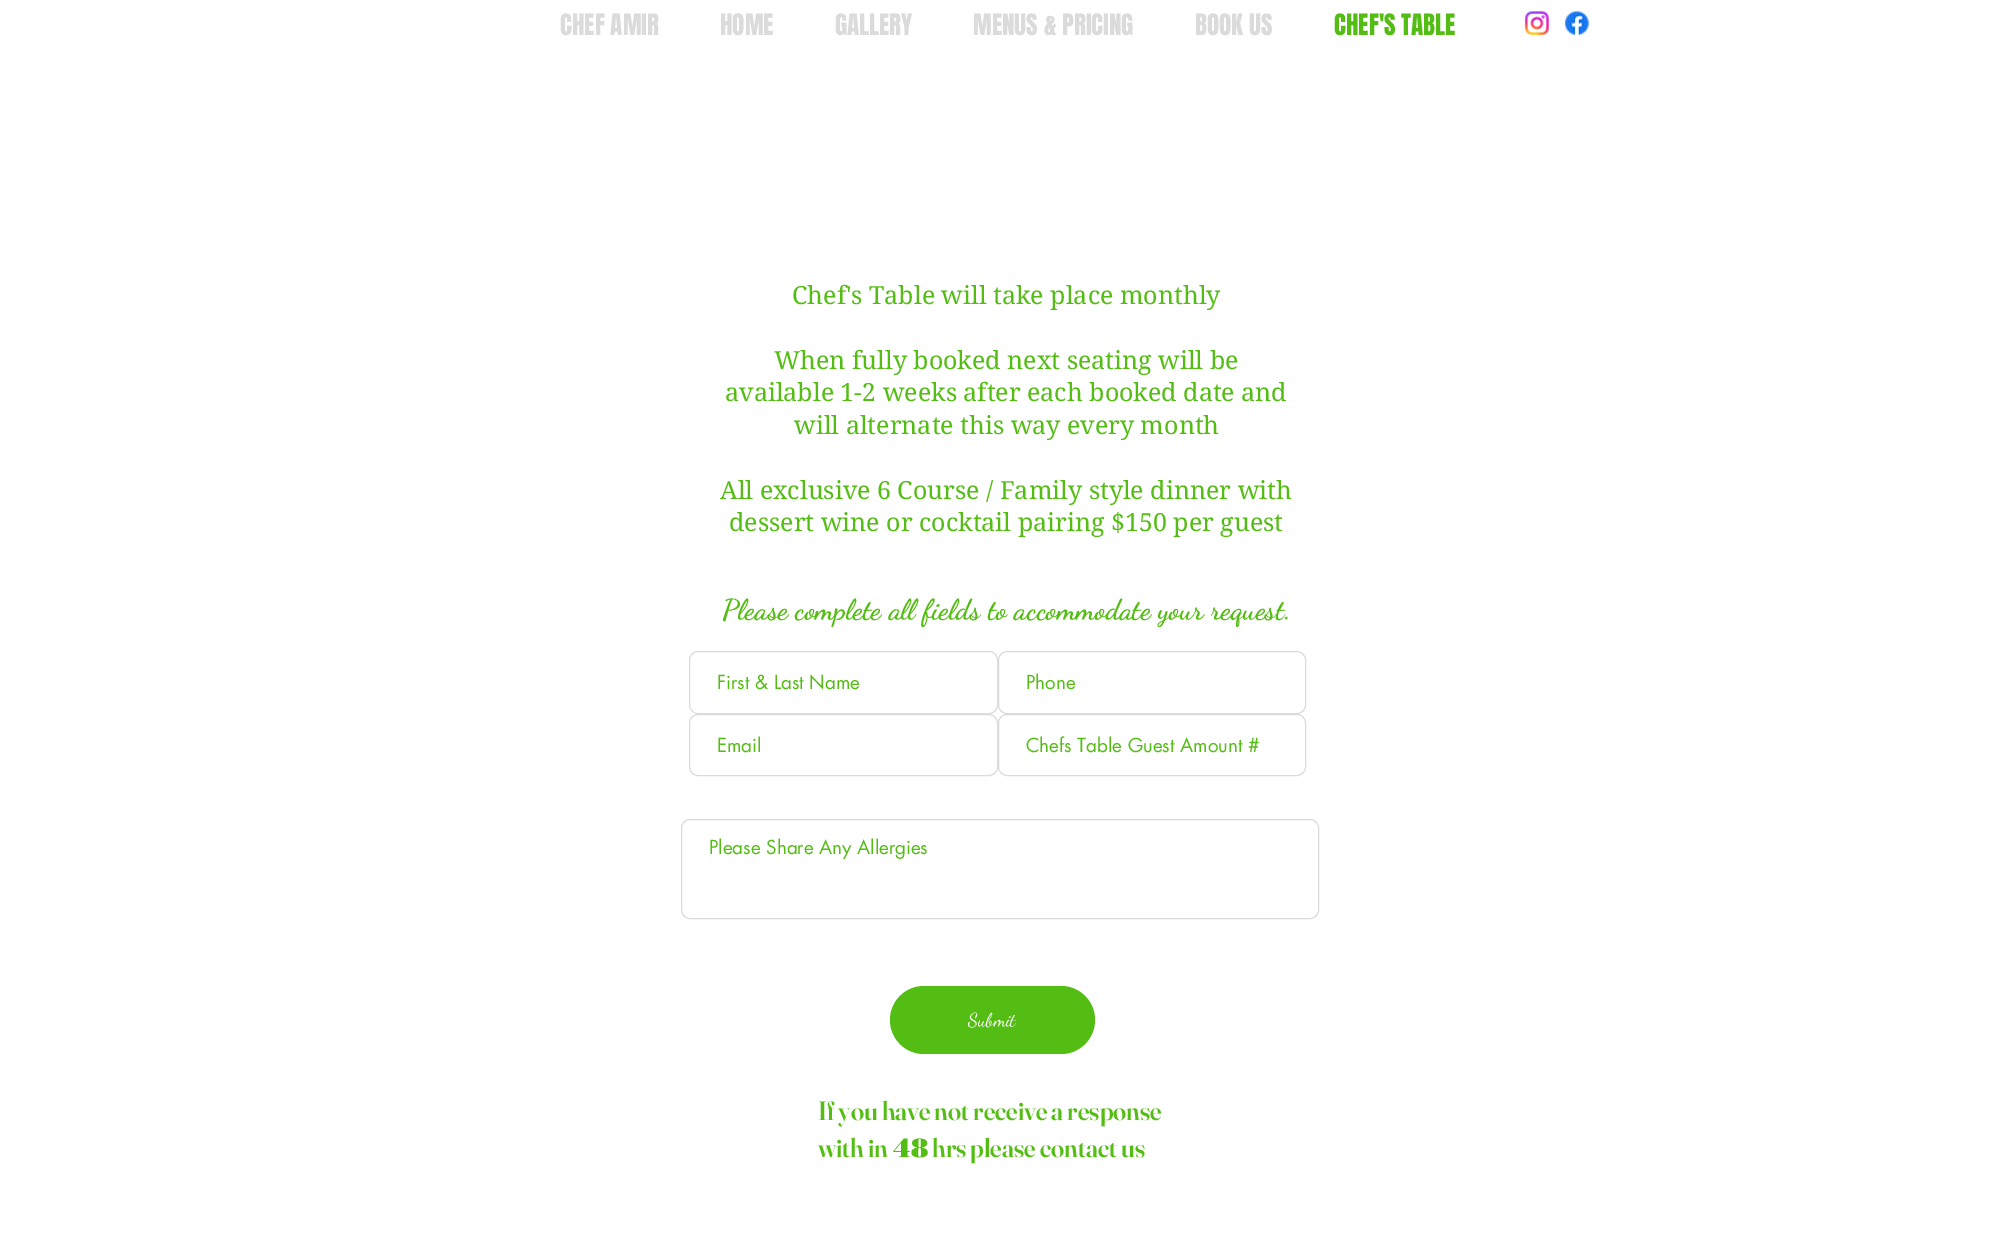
%!PS-Adobe-3.0
%%BoundingBox: 0 0 2016 1243
%%LanguageLevel: 3
%%Pages: 1
%%EndComments
%%BeginProlog
/f { fill } bind def
/S { stroke } bind def
/fn { [ exch dup neg 0 0 3 -1 roll 0 0 ] selectfont } def
/tx { moveto show } def
/bx { rectfill } def
/rr { 5 dict begin { /r /h /w /y /x } { exch def } forall
  x r add y moveto x w add y 2 copy h add r arct x w add y h add x 1 index r arct
  x y h add x y r arct x y 2 copy exch w add exch r arct closepath end } def
/im { 5 dict begin { /h /w /y /x /name } { exch def } forall
  gsave x y translate w h scale
  w h 8 [w 0 0 h 0 0] name (r) file false 3 colorimage grestore end } def
%%EndProlog
%%BeginSetup
<< /PageSize [2016 1243] >> setpagedevice
%%EndSetup
%%Page: 1 1
0 1243 translate 1 -1 scale
4 setmiterlimit
1 setgray
0 0 2016 1243 bx
/Anton-Regular 25 fn
0.859 setgray
(CHEF AMIR) 560 35 tx
(HOME) 720 35 tx
(GALLERY) 835 35 tx
(MENUS & PRICING) 973 35 tx
(BOOK US) 1195 35 tx
0.329 0.741 0.075 setrgbcolor
(CHEF'S TABLE) 1334 35 tx
(image0.raw) 1524 11 25 25 im
(image1.raw) 1564 11 25 25 im
/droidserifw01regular-Regular 25 fn
(Chef's Table will take place monthly) 792 304 tx
(When fully booked next seating will be) 774 369 tx
(available 1-2 weeks after each booked date and) 725 401 tx
(will alternate this way every month) 794 434 tx
(All exclusive 6 Course / Family style dinner with) 720 499 tx
(dessert wine or cocktail pairing $150 per guest) 729 531 tx
/DancingScript-Bold 28.75 fn
(Please complete all fields to accommodate your request.) 722 619 tx
0.859 setgray
689.5 651.5 308 62 8.5 rr S
/futura-Regular 18.75 fn
0.329 0.741 0.075 setrgbcolor
(First & Last Name) 717 689 tx
0.859 setgray
998.5 651.5 307 62 8.5 rr S
0.329 0.741 0.075 setrgbcolor
(Phone) 1026 689 tx
0.859 setgray
689.5 714.5 308 61 8.5 rr S
0.329 0.741 0.075 setrgbcolor
(Email) 717 752 tx
0.859 setgray
998.5 714.5 307 61 8.5 rr S
0.329 0.741 0.075 setrgbcolor
(Chefs Table Guest Amount #) 1026 752 tx
0.859 setgray
681.5 819.5 637 99 8.5 rr S
0.329 0.741 0.075 setrgbcolor
(Please Share Any Allergies) 709 854 tx
890 986 205 68 34 rr f
/DancingScript-Regular 18.75 fn
1 setgray
(Submit) 968 1026 tx
/Fraunces-SemiBold 26.25 fn
0.329 0.741 0.075 setrgbcolor
(If you have not receive a response) 818 1120 tx
(with in) 818 1157 tx
/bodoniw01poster-Black 26.25 fn
(48) 893 1157 tx
/Fraunces-SemiBold 26.25 fn
(hrs please contact us) 932 1157 tx
showpage
%%EOF
